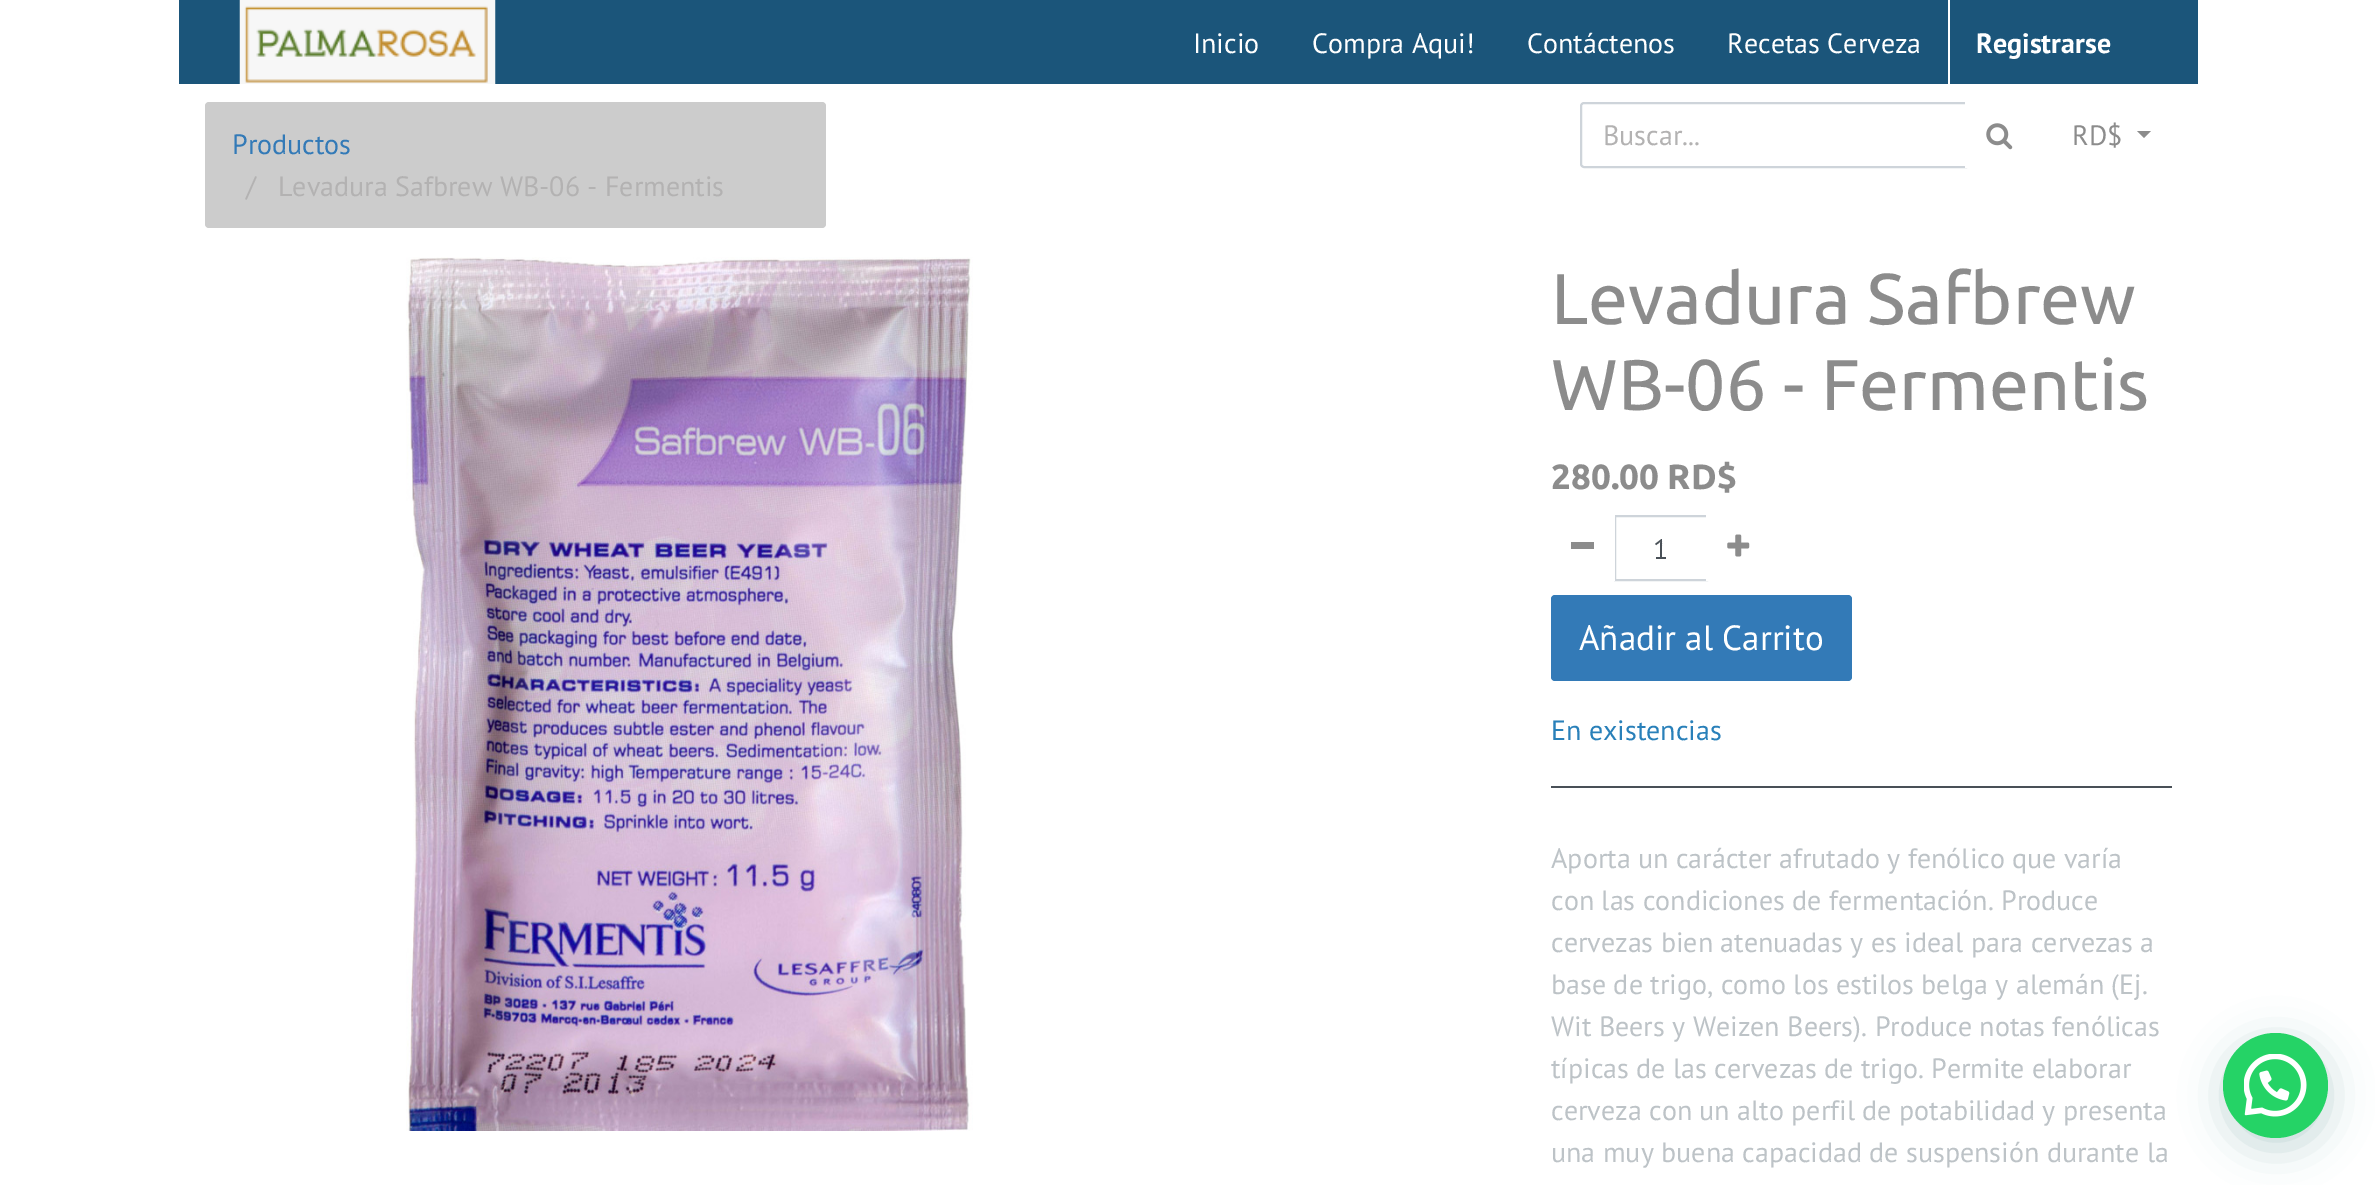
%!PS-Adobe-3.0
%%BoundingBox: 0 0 2375 1185
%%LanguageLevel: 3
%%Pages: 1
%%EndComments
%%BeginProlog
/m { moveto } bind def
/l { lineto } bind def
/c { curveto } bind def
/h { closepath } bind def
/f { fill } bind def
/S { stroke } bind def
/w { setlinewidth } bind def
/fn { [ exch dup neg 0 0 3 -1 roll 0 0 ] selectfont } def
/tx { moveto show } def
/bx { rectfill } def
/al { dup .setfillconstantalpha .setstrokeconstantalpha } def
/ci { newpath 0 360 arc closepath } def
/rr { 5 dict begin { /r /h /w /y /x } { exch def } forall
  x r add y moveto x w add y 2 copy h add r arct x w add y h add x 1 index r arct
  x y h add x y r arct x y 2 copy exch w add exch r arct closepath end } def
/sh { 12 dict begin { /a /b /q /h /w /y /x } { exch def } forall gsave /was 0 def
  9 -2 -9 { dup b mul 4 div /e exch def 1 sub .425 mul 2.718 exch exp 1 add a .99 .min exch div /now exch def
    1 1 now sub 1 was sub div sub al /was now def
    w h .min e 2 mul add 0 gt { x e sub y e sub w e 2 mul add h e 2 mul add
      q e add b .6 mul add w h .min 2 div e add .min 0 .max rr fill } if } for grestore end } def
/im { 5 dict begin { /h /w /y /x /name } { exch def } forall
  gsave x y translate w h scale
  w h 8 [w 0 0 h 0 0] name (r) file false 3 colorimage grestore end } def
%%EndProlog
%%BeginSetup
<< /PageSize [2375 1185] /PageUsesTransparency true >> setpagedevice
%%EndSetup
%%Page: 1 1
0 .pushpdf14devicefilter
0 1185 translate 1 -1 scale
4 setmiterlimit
1 setgray
0 0 2375 1185 bx
0.106 0.333 0.478 setrgbcolor
179 0 2019 84 bx
(image0.raw) 239 0 257 84 im
/PTSans-Regular 28 fn
1 setgray
(Inicio) 1193 53 tx
(Compra Aqui!) 1312 53 tx
(Contáctenos) 1527 53 tx
(Recetas Cerveza) 1727 53 tx
1948 0 2 84 bx
/PTSans-Bold 28 fn
(Registrarse) 1976 53 tx
0.8 setgray
205 102 621 126 4 rr f
/PTSans-Regular 28 fn
0.2 0.478 0.718 setrgbcolor
(Productos) 232 154 tx
0.702 0.698 0.698 setrgbcolor
(/) 246 196 tx
(Levadura Safbrew WB-06 - Fermentis) 278 196 tx
0.808 0.831 0.855 setrgbcolor
2 w
1584 103 m 1966 103 l 1966 167 l 1584 167 l 1582.5 167 1581 165.5 1581 164 c 1581 106 l 1581 104.5 1582.5 103 1584 103 c h S
0.702 0.698 0.698 setrgbcolor
(Buscar...) 1603 145 tx
1 setgray
1965 102 m 2030 102 l 2032 102 2034 104 2034 106 c 2034 164 l 2034 166 2032 168 2030 168 c 1965 168 l h f
(image1.raw) 1986 123 27 27 im
0.549 setgray
(RD$) 2072 145 tx
2137 131 m 2151 131 l 2144 138 l h f
(image2.raw) 406 257 567 874 im
/Ubuntu-Regular 71.75 fn
(Levadura Safbrew) 1551 324 tx
(WB-06 - Fermentis) 1551 410 tx
/Ubuntu-Bold 35 fn
(280.00 RD$) 1551 489 tx
0.808 0.831 0.855 setrgbcolor
1615 516 92 64 rectstroke
1 setgray
1555 515 m 1615 515 l 1615 581 l 1555 581 l 1553 581 1551 579 1551 577 c 1551 519 l 1551 517 1553 515 1555 515 c h f
0.549 setgray
1571 542 23 7 bx
/PTSans-Regular 28 fn
0.286 0.314 0.341 setrgbcolor
(1) 1653 559 tx
1 setgray
1706 515 m 1765 515 l 1767 515 1769 517 1769 519 c 1769 577 l 1769 579 1767 581 1765 581 c 1706 581 l h f
(image3.raw) 1727 534 23 23 im
0.2 0.478 0.718 setrgbcolor
1551 595 301 86 4 rr f
/PTSans-Regular 35 fn
1 setgray
(Añadir al Carrito) 1579 650 tx
/PTSans-Regular 28 fn
0.161 0.502 0.725 setrgbcolor
(En existencias) 1551 740 tx
0.286 0.314 0.341 setrgbcolor
1551 786 621 2 bx
0.741 0.765 0.78 setrgbcolor
(Aporta un carácter afrutado y fenólico que varía) 1551 868 tx
(con las condiciones de fermentación. Produce) 1551 910 tx
(cervezas bien atenuadas y es ideal para cervezas a) 1551 952 tx
(base de trigo, como los estilos belga y alemán \(Ej.) 1551 994 tx
(Wit Beers y Weizen Beers\). Produce notas fenólicas) 1551 1036 tx
(típicas de las cervezas de trigo. Permite elaborar) 1551 1078 tx
(cerveza con un alto perfil de potabilidad y presenta) 1551 1120 tx
(una muy buena capacidad de suspensión durante la) 1551 1162 tx
0.027 0.369 0.329 setrgbcolor
2224 1043 105 105 52.5 21 0.24 sh
0.145 0.827 0.4 setrgbcolor
2275.5 1085.5 52.5 ci f
(image4.raw) 2244 1054 63 63 im
.poppdf14devicefilter showpage
%%EOF
